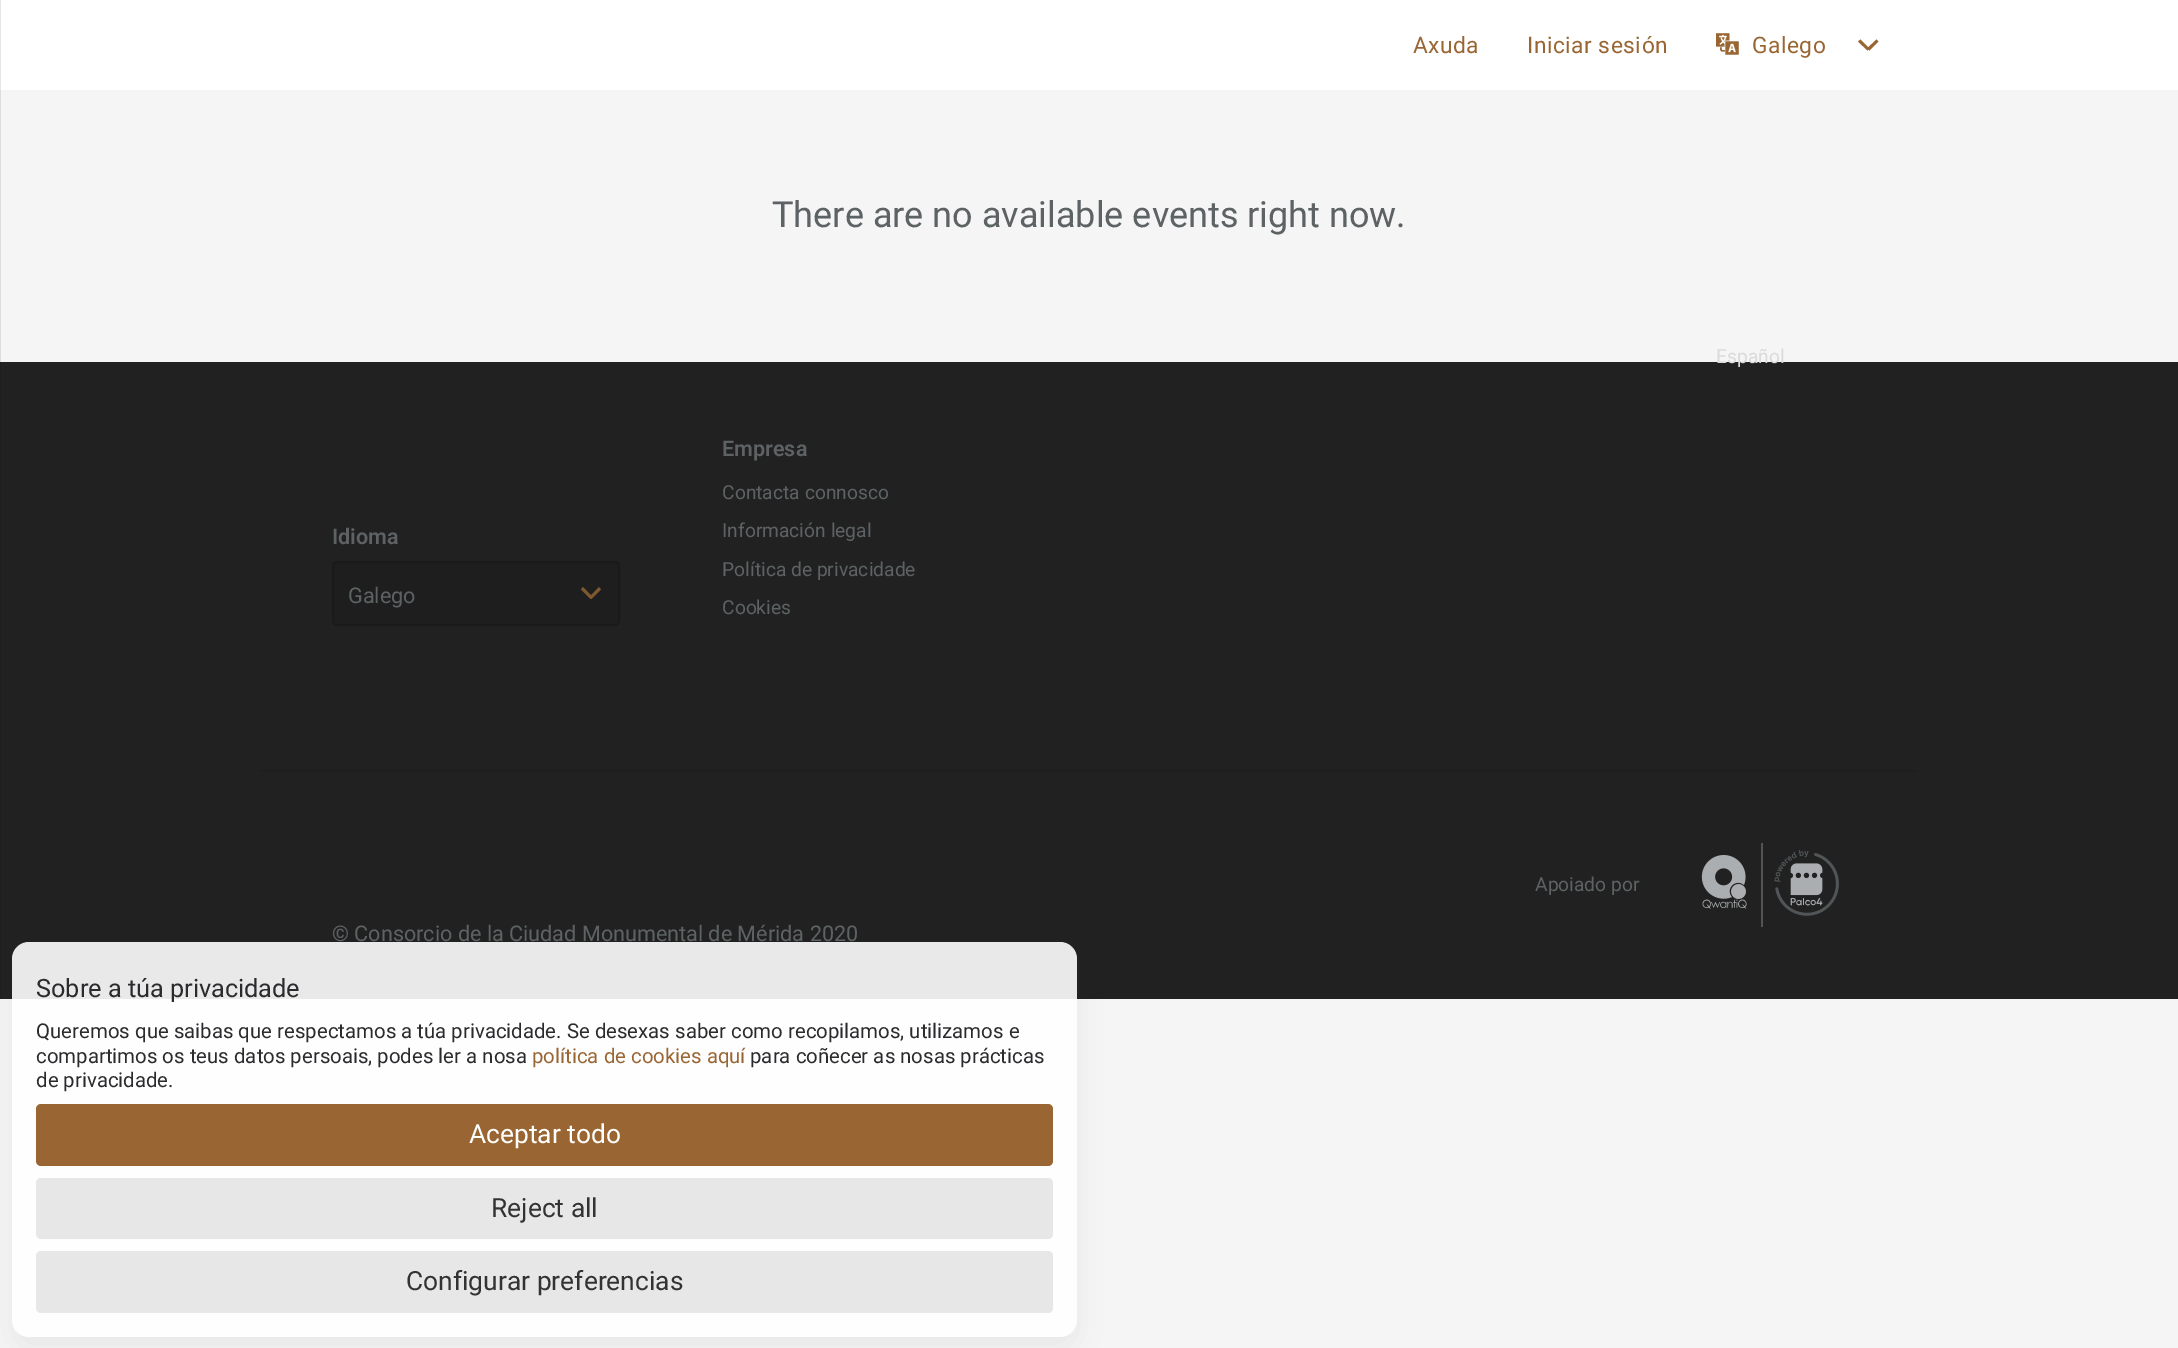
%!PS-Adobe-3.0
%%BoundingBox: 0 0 2178 1348
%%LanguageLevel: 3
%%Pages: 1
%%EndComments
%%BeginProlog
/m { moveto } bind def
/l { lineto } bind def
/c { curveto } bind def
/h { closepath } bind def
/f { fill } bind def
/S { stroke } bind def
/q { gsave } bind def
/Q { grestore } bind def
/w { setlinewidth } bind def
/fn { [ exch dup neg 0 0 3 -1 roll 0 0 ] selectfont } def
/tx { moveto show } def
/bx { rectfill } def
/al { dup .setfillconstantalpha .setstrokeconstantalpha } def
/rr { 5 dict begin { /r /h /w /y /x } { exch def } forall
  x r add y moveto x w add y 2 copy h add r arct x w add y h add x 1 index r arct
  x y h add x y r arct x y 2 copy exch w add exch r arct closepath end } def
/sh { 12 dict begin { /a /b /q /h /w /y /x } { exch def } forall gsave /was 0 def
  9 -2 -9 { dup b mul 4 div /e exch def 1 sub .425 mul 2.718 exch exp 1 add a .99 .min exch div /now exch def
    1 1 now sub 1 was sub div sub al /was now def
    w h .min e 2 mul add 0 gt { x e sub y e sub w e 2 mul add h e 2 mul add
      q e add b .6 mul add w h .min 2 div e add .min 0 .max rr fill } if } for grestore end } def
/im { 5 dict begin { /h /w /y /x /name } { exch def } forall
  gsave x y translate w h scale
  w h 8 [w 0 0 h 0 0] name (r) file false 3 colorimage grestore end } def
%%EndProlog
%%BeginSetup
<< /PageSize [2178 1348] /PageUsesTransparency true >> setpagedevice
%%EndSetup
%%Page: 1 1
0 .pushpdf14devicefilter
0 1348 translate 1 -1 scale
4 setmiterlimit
0.961 setgray
0 0 2178 1348 bx
0.867 setgray
0 90 1 272 bx
/Roboto-Regular 36 fn
0.365 0.384 0.392 setrgbcolor
(There are no available events right now.) 772 227 tx
1 setgray
1 0 2177 90 bx
0.902 setgray
0 0 1 90 bx
/Roboto-Regular 22.75 fn
0.6 0.4 0.2 setrgbcolor
1413 53 m 0.5 0 (Axuda) ashow
1527 53 m 0.5 0 (Iniciar sesión) ashow
(image0.raw) 1716 33 23 22 im
1752 53 m 0.5 0 (Galego) ashow
1867 48.5 m 1876.5 39.5 l 1878.5 41.5 l 1869.5 50.5 l h f
1860.5 39.5 m 1869.5 48.5 l 1867.5 50.5 l 1858 41.5 l h f
0.129 setgray
1 362 2177 637 bx
/Roboto-Regular 19.25 fn
0.855 setgray
(Español) 1716 363 tx
0.118 setgray
0 362 1 637 bx
/Roboto-SemiBold 21.6 fn
0.365 0.384 0.392 setrgbcolor
(Idioma) 332 544 tx
0.118 setgray
333 562 286 63 4 rr q f Q
0.102 setgray
2 w
S
/Roboto-Regular 21.6 fn
0.365 0.384 0.392 setrgbcolor
(Galego) 348 603 tx
0.502 0.345 0.184 setrgbcolor
583 587 m 592.5 597 l 590.5 599 l 581 589.5 l h f
589.5 597 m 599 587 l 601 589.5 l 591.5 599 l h f
/Roboto-SemiBold 21.6 fn
0.365 0.384 0.392 setrgbcolor
(Empresa) 722 456 tx
/Roboto-Regular 19.25 fn
(Contacta connosco) 722 499 tx
(Información legal) 722 537 tx
(Política de privacidade) 722 576 tx
(Cookies) 722 614 tx
0.118 setgray
261 770 1656 2 bx
0.318 0.333 0.341 setrgbcolor
1761 843 2 84 bx
0.365 0.384 0.392 setrgbcolor
(Apoiado por) 1535 891 tx
(image1.raw) 1701 855 46 54 im
(image2.raw) 1774 850 65 66 im
/Roboto-Regular 21.6 fn
(© Consorcio de la Ciudad Monumental de Mérida 2020) 332 941 tx
q
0 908 m 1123 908 l 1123 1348 l 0 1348 l h 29 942 m 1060 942 l 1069.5 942 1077 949.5 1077 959 c 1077 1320 l 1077 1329.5 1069.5 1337 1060 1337 c 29 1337 l 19.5 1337 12 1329.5 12 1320 c 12 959 l 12 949.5 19.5 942 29 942 c h eoclip newpath
0 setgray
12 954 1065 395 17 15 0.06 sh
Q
0.9 al
1 setgray
12 942 1065 395 17 rr f
/Roboto-Regular 25.25 fn
1 al
0.169 0.165 0.176 setrgbcolor
(Sobre a túa privacidade) 36 997 tx
/Roboto-Regular 20.4 fn
(Queremos que saibas que respectamos a túa privacidade. Se desexas saber como recopilamos, utilizamos e) 36 1038 tx
(compartimos os teus datos persoais, podes ler a nosa) 36 1063 tx
0.6 0.4 0.2 setrgbcolor
(política de cookies aquí) 532 1063 tx
0.169 0.165 0.176 setrgbcolor
(para coñecer as nosas prácticas) 750 1063 tx
(de privacidade.) 36 1087 tx
0.6 0.4 0.2 setrgbcolor
36 1104 1017 62 5 rr f
/Roboto-Regular 26.4 fn
1 setgray
(Aceptar todo) 469 1143 tx
0.906 setgray
36 1178 1017 61 5 rr f
0.2 setgray
(Reject all) 491 1217 tx
0.906 setgray
36 1251 1017 62 5 rr f
0.2 setgray
(Configurar preferencias) 406 1290 tx
.poppdf14devicefilter showpage
%%EOF
